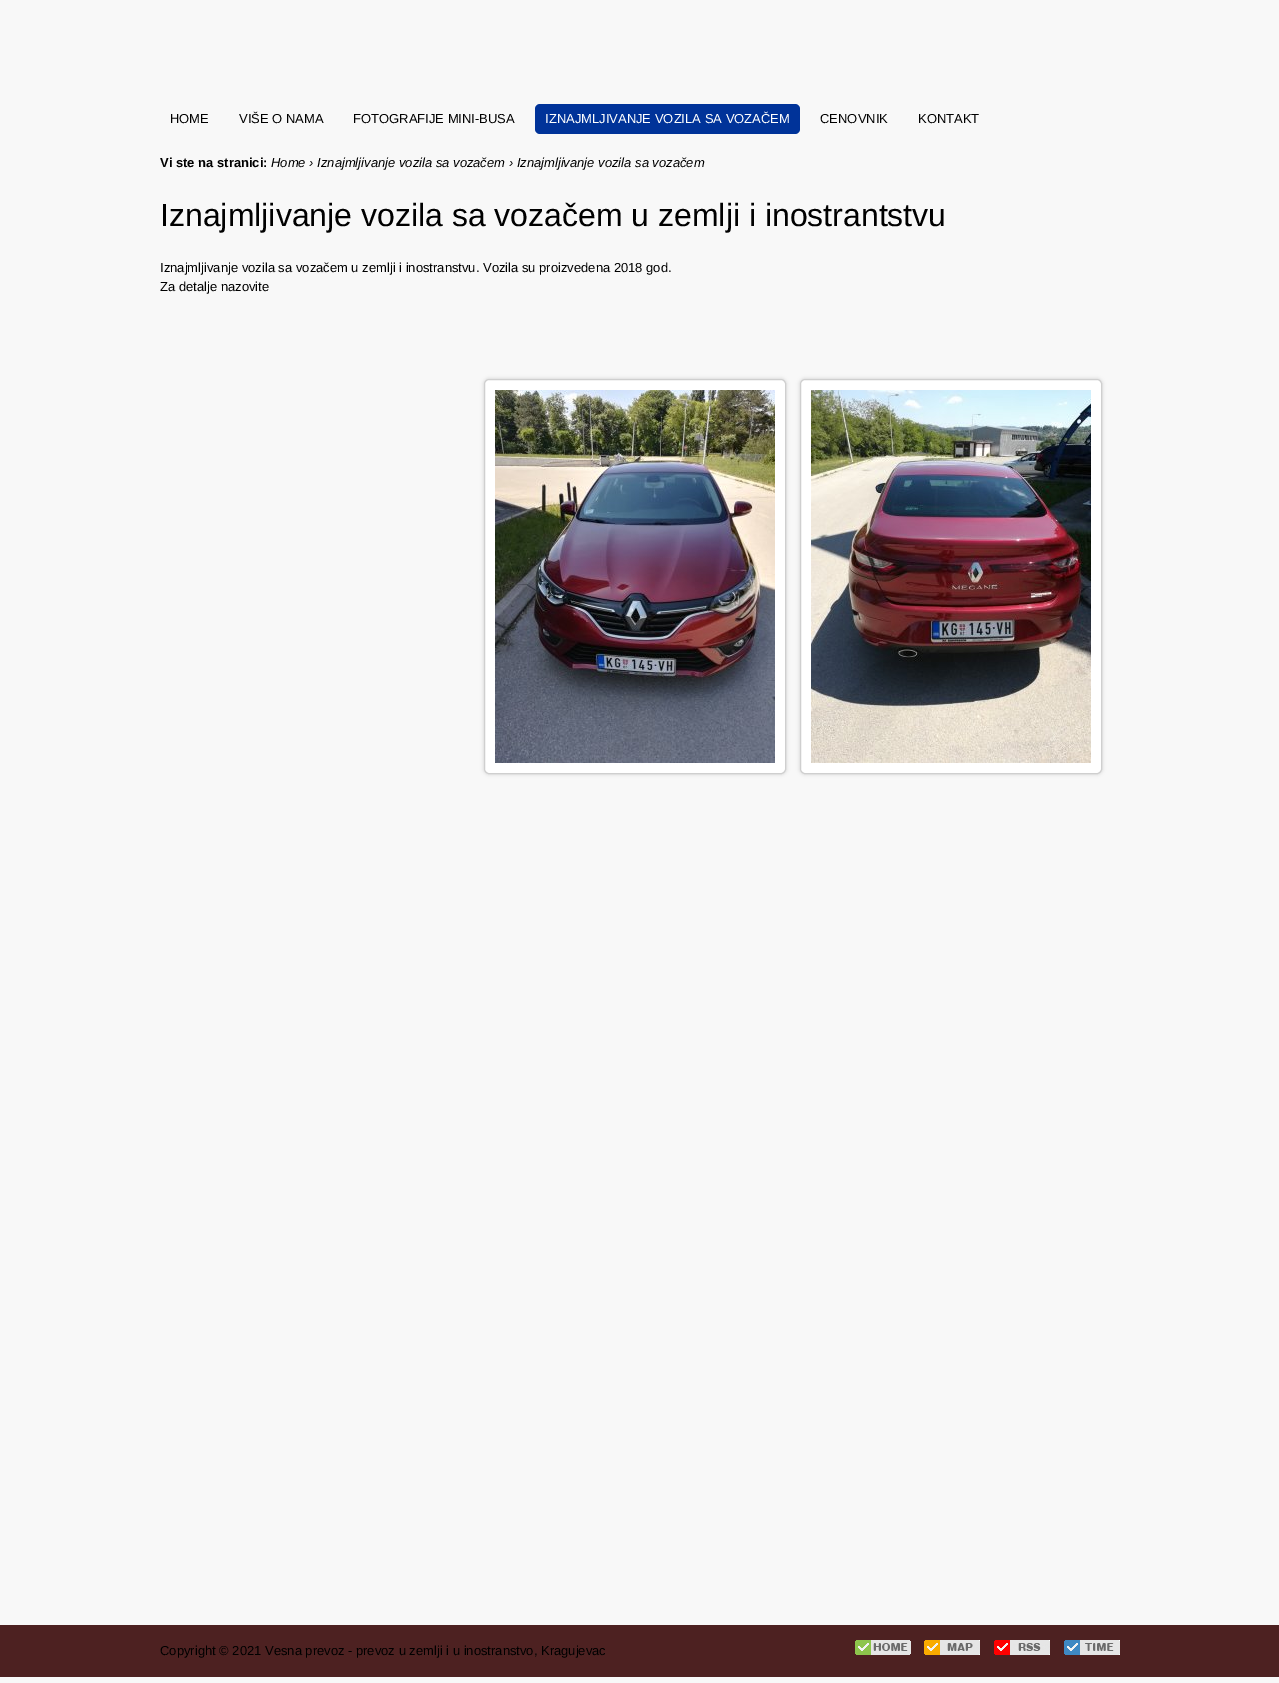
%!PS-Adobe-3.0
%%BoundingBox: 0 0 1279 1683
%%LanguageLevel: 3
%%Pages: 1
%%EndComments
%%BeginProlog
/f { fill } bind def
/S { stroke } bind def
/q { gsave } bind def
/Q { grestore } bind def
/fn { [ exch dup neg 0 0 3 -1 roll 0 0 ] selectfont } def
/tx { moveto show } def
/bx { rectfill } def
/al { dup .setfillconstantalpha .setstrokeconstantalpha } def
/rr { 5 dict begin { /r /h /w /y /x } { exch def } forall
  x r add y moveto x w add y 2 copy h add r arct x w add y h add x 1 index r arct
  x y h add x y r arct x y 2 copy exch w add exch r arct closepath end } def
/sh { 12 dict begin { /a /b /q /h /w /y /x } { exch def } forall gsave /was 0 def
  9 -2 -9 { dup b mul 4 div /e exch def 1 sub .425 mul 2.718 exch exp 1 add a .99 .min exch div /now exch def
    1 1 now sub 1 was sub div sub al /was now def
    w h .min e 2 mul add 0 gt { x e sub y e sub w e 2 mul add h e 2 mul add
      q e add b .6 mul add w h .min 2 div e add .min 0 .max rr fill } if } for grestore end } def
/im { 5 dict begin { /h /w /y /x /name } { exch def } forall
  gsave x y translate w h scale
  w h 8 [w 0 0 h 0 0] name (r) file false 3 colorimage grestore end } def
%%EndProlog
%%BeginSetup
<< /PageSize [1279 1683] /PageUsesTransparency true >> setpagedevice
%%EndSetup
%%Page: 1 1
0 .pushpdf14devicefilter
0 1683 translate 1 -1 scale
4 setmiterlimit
0.973 setgray
0 0 1279 1683 bx
/LiberationSans-Regular 13 fn
0 setgray
(HOME) 170 123 tx
(VIŠE O NAMA) 239 123 tx
(FOTOGRAFIJE MINI-BUSA) 353 123 tx
0 0.2 0.6 setrgbcolor
535 104 265 30 5 rr f
1 setgray
(IZNAJMLJIVANJE VOZILA SA VOZAČEM) 545 123 tx
0 setgray
(CENOVNIK) 820 123 tx
(KONTAKT) 918 123 tx
/LiberationSans-Bold 13 fn
(Vi ste na stranici:) 160 167 tx
/LiberationSans-Italic 13 fn
(Home › Iznajmljivanje vozila sa vozačem › Iznajmljivanje vozila sa vozačem) 271 167 tx
/LiberationSans-Regular 32 fn
(Iznajmljivanje vozila sa vozačem u zemlji i inostrantstvu) 160 226 tx
/LiberationSans-Regular 13 fn
(Iznajmljivanje vozila sa vozačem u zemlji i inostranstvu. Vozila su proizvedena 2018 god.) 160 272 tx
(Za detalje nazovite) 160 291 tx
0.8 setgray
484 379 302 395 5 2 1 sh
1 setgray
484.5 379.5 301 394 4.5 rr q f Q
0.812 setgray
S
(image0.raw) 495 390 280 373 im
0.8 setgray
800 379 302 395 5 2 1 sh
1 setgray
800.5 379.5 301 394 4.5 rr q f Q
0.812 setgray
S
(image1.raw) 811 390 280 373 im
0.302 0.129 0.129 setrgbcolor
0 1625 1279 52 bx
0 setgray
(Copyright © 2021 Vesna prevoz - prevoz u zemlji i u inostranstvo, Kragujevac) 160 1655 tx
(image2.raw) 855 1640 56 15 im
(image3.raw) 924 1640 56 15 im
(image4.raw) 994 1640 56 15 im
(image5.raw) 1064 1640 56 15 im
.poppdf14devicefilter showpage
%%EOF
